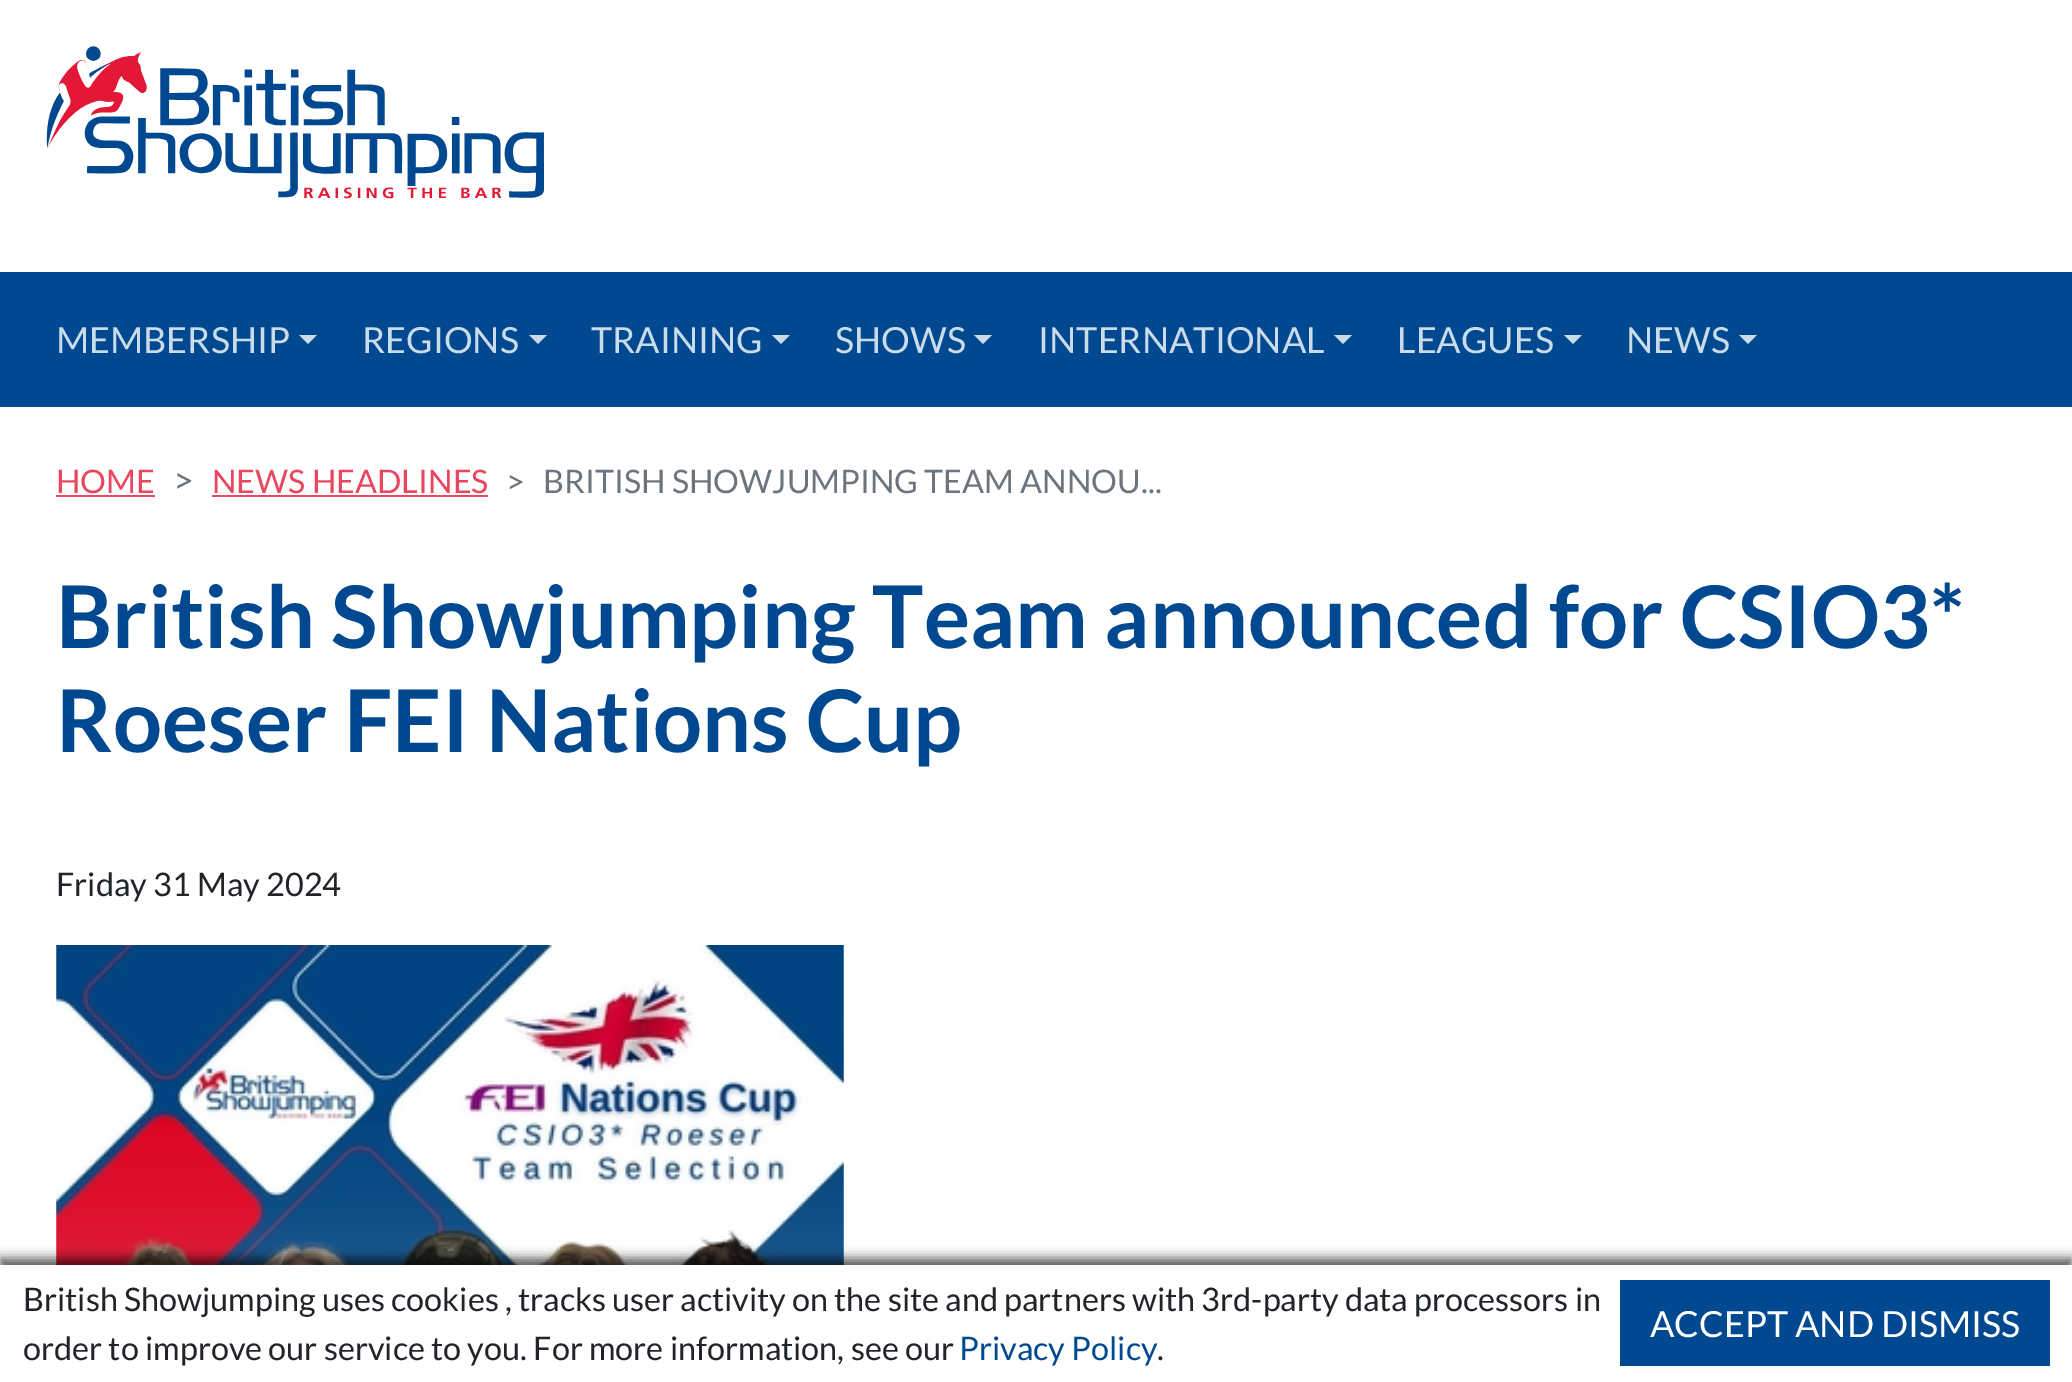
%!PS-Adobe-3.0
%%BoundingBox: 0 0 2072 1382
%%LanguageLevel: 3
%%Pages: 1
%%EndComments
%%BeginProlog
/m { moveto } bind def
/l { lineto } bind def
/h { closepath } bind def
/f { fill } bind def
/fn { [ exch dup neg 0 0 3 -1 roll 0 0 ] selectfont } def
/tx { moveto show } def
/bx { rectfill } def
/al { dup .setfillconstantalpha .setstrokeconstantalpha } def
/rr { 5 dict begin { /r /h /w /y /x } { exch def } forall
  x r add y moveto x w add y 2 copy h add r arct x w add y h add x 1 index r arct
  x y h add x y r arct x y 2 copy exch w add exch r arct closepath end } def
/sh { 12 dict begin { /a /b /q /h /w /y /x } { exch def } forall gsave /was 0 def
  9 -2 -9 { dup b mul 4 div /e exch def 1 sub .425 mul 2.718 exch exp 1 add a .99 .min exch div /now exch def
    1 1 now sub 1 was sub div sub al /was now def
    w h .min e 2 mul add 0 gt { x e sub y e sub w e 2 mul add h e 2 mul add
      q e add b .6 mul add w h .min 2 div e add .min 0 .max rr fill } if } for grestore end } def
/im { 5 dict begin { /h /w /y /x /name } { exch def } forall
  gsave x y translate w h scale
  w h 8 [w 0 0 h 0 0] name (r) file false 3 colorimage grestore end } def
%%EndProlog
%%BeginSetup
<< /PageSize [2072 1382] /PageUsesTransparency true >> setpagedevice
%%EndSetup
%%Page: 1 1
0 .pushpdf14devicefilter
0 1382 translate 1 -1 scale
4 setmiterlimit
1 setgray
0 0 2072 1382 bx
(image0.raw) 46 46 498 153 im
0 0.282 0.565 setrgbcolor
0 272 2072 135 bx
/Lato-Regular 36 fn
0.792 0.863 0.918 setrgbcolor
(MEMBERSHIP) 56 353 tx
299 335 m 317 335 l 308 344 l h f
(REGIONS) 362 353 tx
529 335 m 547 335 l 538 344 l h f
(TRAINING) 591 353 tx
772 335 m 790 335 l 781 344 l h f
(SHOWS) 835 353 tx
974 335 m 992 335 l 983 344 l h f
(INTERNATIONAL) 1038 353 tx
1334 335 m 1352 335 l 1343 344 l h f
(LEAGUES) 1397 353 tx
1564 335 m 1582 335 l 1573 344 l h f
(NEWS) 1626 353 tx
1739 335 m 1757 335 l 1748 344 l h f
/Lato-Regular 32.4 fn
0.914 0.278 0.373 setrgbcolor
(HOME) 56 493 tx
56 495 99 2 bx
/Lato-Regular 36 fn
0.424 0.459 0.49 setrgbcolor
(>) 173 493 tx
/Lato-Regular 32.4 fn
0.914 0.278 0.373 setrgbcolor
(NEWS HEADLINES) 212 493 tx
212 495 276 2 bx
0.424 0.459 0.49 setrgbcolor
(>) 506 493 tx
(BRITISH SHOWJUMPING TEAM ANNOU...) 543 493 tx
/Lato-Bold 86.4 fn
0 0.282 0.565 setrgbcolor
(British Showjumping Team announced for CSIO3*) 56 648 tx
(Roeser FEI Nations Cup) 56 752 tx
/Lato-Regular 32.4 fn
0.129 0.145 0.161 setrgbcolor
(Friday 31 May 2024) 56 896 tx
(image1.raw) 56 945 788 320 im
0 setgray
0 1258 2072 119 0 5.5 0.64 sh
1 setgray
0 1265 2072 117 bx
0.129 0.145 0.161 setrgbcolor
(British Showjumping uses cookies , tracks user activity on the site and partners with 3rd-party data processors in) 23 1311 tx
(order to improve our service to you. For more information, see our) 23 1360 tx
0 0.282 0.565 setrgbcolor
(Privacy Policy) 959 1360 tx
0.129 0.145 0.161 setrgbcolor
(.) 1157 1360 tx
0 0.286 0.565 setrgbcolor
1620 1280 430 86 bx
/Lato-Regular 36 fn
1 setgray
(ACCEPT AND DISMISS) 1650 1337 tx
.poppdf14devicefilter showpage
%%EOF
